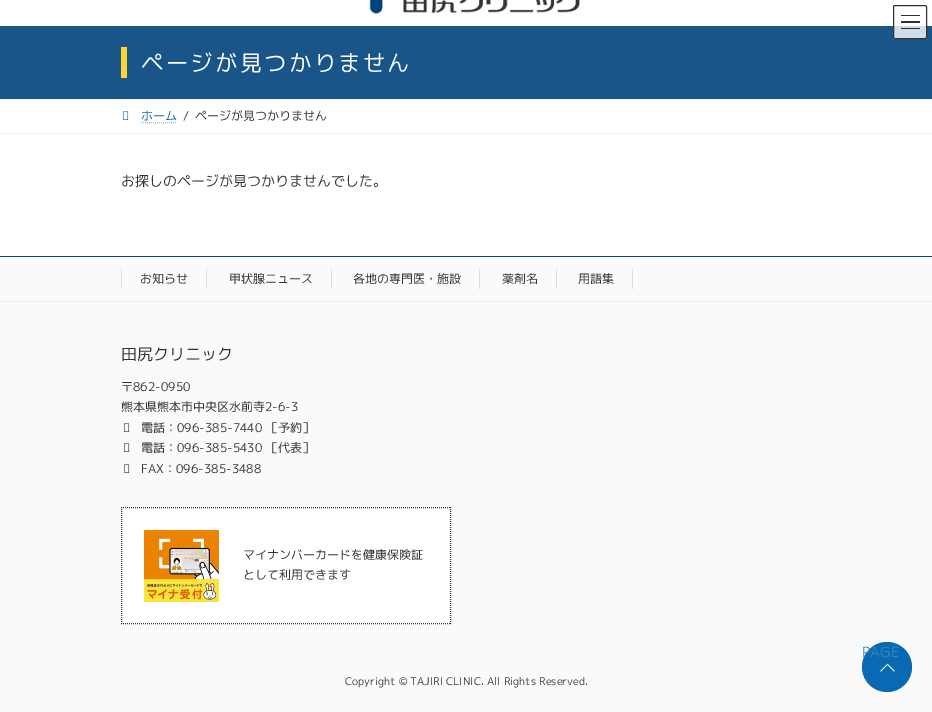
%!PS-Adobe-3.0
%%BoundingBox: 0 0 932 712
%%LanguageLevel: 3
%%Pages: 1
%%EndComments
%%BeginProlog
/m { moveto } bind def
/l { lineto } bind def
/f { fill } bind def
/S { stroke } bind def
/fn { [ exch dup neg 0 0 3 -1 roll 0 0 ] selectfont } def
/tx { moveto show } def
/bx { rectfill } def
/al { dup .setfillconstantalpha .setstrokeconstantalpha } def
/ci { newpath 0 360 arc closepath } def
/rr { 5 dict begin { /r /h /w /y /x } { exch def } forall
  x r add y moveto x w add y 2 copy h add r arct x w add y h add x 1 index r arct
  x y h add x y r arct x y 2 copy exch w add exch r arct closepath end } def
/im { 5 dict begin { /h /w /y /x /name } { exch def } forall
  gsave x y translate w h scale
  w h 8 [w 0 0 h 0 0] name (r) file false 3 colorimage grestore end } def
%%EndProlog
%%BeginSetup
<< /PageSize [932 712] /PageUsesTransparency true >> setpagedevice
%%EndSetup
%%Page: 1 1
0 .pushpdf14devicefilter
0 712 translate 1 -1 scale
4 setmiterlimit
1 setgray
0 0 932 712 bx
(image0.raw) 369 0 211 14 im
0.098 0.333 0.533 setrgbcolor
0 26 932 73 bx
0.8 al
1 setgray
893 5 34 34 2 rr f
1 al
0.2 setgray
901 15 19 1 bx
901 21 19 2 bx
0.165 0.173 0.18 setrgbcolor
901 28 19 1 bx
0.2 setgray
893.5 5.5 33 33 1.5 rr S
1 0.839 0.192 setrgbcolor
121 47 6 31 bx
/MPLUS1p-Regular 22.4 fn
1 setgray
141 71 m 2.25 0 (ページが見つかりません) ashow
0.941 setgray
0 99 932 1 bx
0 133 932 1 bx
(image1.raw) 123 111 6 9 im
/MPLUS1p-Regular 12 fn
0.035 0.412 0.698 setrgbcolor
(ホーム) 141 120 tx
0.702 setgray
[1 1] 0 setdash
141 122.5 m 177 122.5 l S
0.2 setgray
(/) 183 120 tx
(ページが見つかりません) 195 120 tx
/MPLUS1p-Regular 14 fn
(お探しのページが見つかりませんでした。) 121 186 tx
0.98 setgray
0 257 932 455 bx
0 0.259 0.482 setrgbcolor
0 256 932 1 bx
0.922 setgray
0 301 932 1 bx
0.863 setgray
206 269 1 20 bx
121 269 1 20 bx
/MPLUS1p-Regular 12 fn
0.2 setgray
(お知らせ) 140 283 tx
0.863 setgray
331 269 1 20 bx
0.2 setgray
(甲状腺ニュース) 229 283 tx
0.863 setgray
479 269 1 20 bx
0.2 setgray
(各地の専門医・施設) 353 283 tx
0.863 setgray
556 269 1 20 bx
0.2 setgray
(薬剤名) 502 283 tx
0.863 setgray
632 269 1 20 bx
0.2 setgray
(用語集) 578 283 tx
/MPLUS1p-Regular 16 fn
(田尻クリニック) 121 360 tx
/MPLUS1p-Regular 12 fn
(〒862-0950) 121 391 tx
(熊本県熊本市中央区水前寺2-6-3) 121 411 tx
(image2.raw) 124 423 6 9 im
(電話：096-385-7440 ［予約］) 141 432 tx
(image2.raw) 124 443 6 9 im
(電話：096-385-5430 ［代表］) 141 452 tx
(image2.raw) 124 464 6 9 im
(FAX：096-385-3488) 141 473 tx
1 setgray
121 507 330 117 bx
0.2 setgray
121 507.5 m 451 507.5 l S
450.5 507 m 450.5 624 l S
121 623.5 m 451 623.5 l S
121.5 507 m 121.5 624 l S
(image3.raw) 144 530 75 72 im
(マイナンバーカードを健康保険証) 243 559 tx
(として利用できます) 243 579 tx
/MPLUS1p-Regular 10.5 fn
(Copyright © TAJIRI CLINIC. All Rights Reserved.) 345 685 tx
0.035 0.412 0.698 setrgbcolor
887 667 25 ci f
(image4.raw) 880 663 15 9 im
/MPLUS1p-Regular 14 fn
0.212 0.518 0.753 setrgbcolor
(PAGE) 862 657 tx
.poppdf14devicefilter showpage
%%EOF
